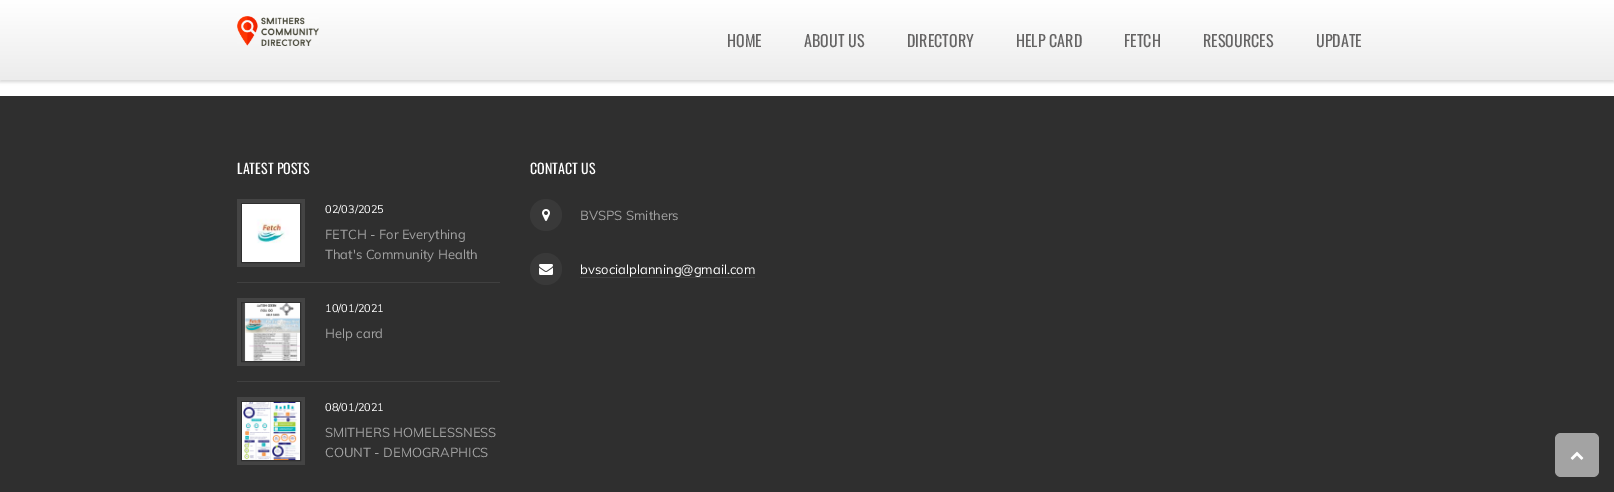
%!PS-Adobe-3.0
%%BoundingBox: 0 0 1614 492
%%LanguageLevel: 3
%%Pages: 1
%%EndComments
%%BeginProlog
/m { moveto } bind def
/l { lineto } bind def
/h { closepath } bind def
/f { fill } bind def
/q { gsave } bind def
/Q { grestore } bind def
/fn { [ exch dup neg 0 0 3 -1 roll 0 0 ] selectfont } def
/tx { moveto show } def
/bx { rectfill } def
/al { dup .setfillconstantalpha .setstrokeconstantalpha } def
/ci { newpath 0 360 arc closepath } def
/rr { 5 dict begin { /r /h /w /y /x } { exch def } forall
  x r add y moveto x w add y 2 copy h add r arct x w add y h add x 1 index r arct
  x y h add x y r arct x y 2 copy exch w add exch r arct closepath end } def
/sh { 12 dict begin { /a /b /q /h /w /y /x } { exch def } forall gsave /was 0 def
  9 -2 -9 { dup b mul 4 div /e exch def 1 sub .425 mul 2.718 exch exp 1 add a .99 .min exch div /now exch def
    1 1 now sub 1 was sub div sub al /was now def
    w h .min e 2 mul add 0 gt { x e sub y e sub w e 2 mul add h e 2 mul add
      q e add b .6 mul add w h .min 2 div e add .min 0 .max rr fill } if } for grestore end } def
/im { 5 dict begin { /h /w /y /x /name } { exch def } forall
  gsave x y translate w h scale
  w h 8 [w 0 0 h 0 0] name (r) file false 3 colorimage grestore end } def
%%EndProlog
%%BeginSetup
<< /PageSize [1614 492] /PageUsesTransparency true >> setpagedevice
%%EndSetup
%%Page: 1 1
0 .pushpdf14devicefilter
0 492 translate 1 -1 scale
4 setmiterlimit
1 setgray
0 0 1614 492 bx
0 setgray
0 2 1614 80 0 1.5 0.15 sh
q 0 0 m 1614 0 l 1614 80 l 0 80 l h clip newpath
<< /ShadingType 2 /ColorSpace /DeviceRGB /Coords [807 0 807 80] /Extend [true true] /Function << /FunctionType 2 /Domain [0 1] /C0 [1 1 1] /C1 [0.925 0.925 0.925] /N 1 >> >> shfill Q
(image0.raw) 237 16 82 30 im
/Oswald-Regular 16 fn
0.396 0.392 0.392 setrgbcolor
(HOME) 727 47 tx
(ABOUT US) 804 47 tx
(DIRECTORY) 907 47 tx
(HELP CARD) 1016 47 tx
(FETCH) 1124 47 tx
(RESOURCES) 1203 47 tx
(UPDATE) 1316 47 tx
0.184 setgray
0 96 1614 396 bx
/Oswald-Regular 14 fn
1 setgray
(LATEST POSTS) 237 174 tx
0.267 setgray
237 199 68 68 bx
0.184 setgray
241.5 203.5 59 59 rectstroke
(image1.raw) 242 204 58 58 im
/Muli-Regular 11 fn
1 setgray
(02/03/2025) 325 213 tx
/Muli-Regular 13 fn
0.639 setgray
(FETCH - For Everything) 325 239 tx
(That's Community Health) 325 259 tx
0.251 setgray
237 282 263 1 bx
0.267 setgray
237 298 68 68 bx
0.184 setgray
241.5 302.5 59 59 rectstroke
(image2.raw) 244 303 56 58 im
/Muli-Regular 11 fn
1 setgray
(10/01/2021) 325 312 tx
/Muli-Regular 13 fn
0.639 setgray
(Help card) 325 338 tx
0.251 setgray
237 381 263 1 bx
0.267 setgray
237 397 68 68 bx
0.184 setgray
241.5 401.5 59 59 rectstroke
(image3.raw) 242 402 58 58 im
/Muli-Regular 11 fn
1 setgray
(08/01/2021) 325 411 tx
/Muli-Regular 13 fn
0.639 setgray
(SMITHERS HOMELESSNESS) 325 437 tx
(COUNT - DEMOGRAPHICS) 325 457 tx
/Oswald-Regular 14 fn
1 setgray
(CONTACT US) 530 174 tx
0.224 setgray
546 215 16 ci f
(image4.raw) 542 209 8 12 im
/Muli-Regular 13 fn
0.639 setgray
(BVSPS Smithers) 580 220 tx
0.224 setgray
546 269 16 ci f
(image5.raw) 539 264 14 11 im
1 setgray
(bvsocialplanning@gmail.com) 580 274 tx
0.251 setgray
580 277 175 1 bx
0.639 setgray
1555 433 44 44 6 rr f
(image6.raw) 1570 451 14 9 im
.poppdf14devicefilter showpage
%%EOF
